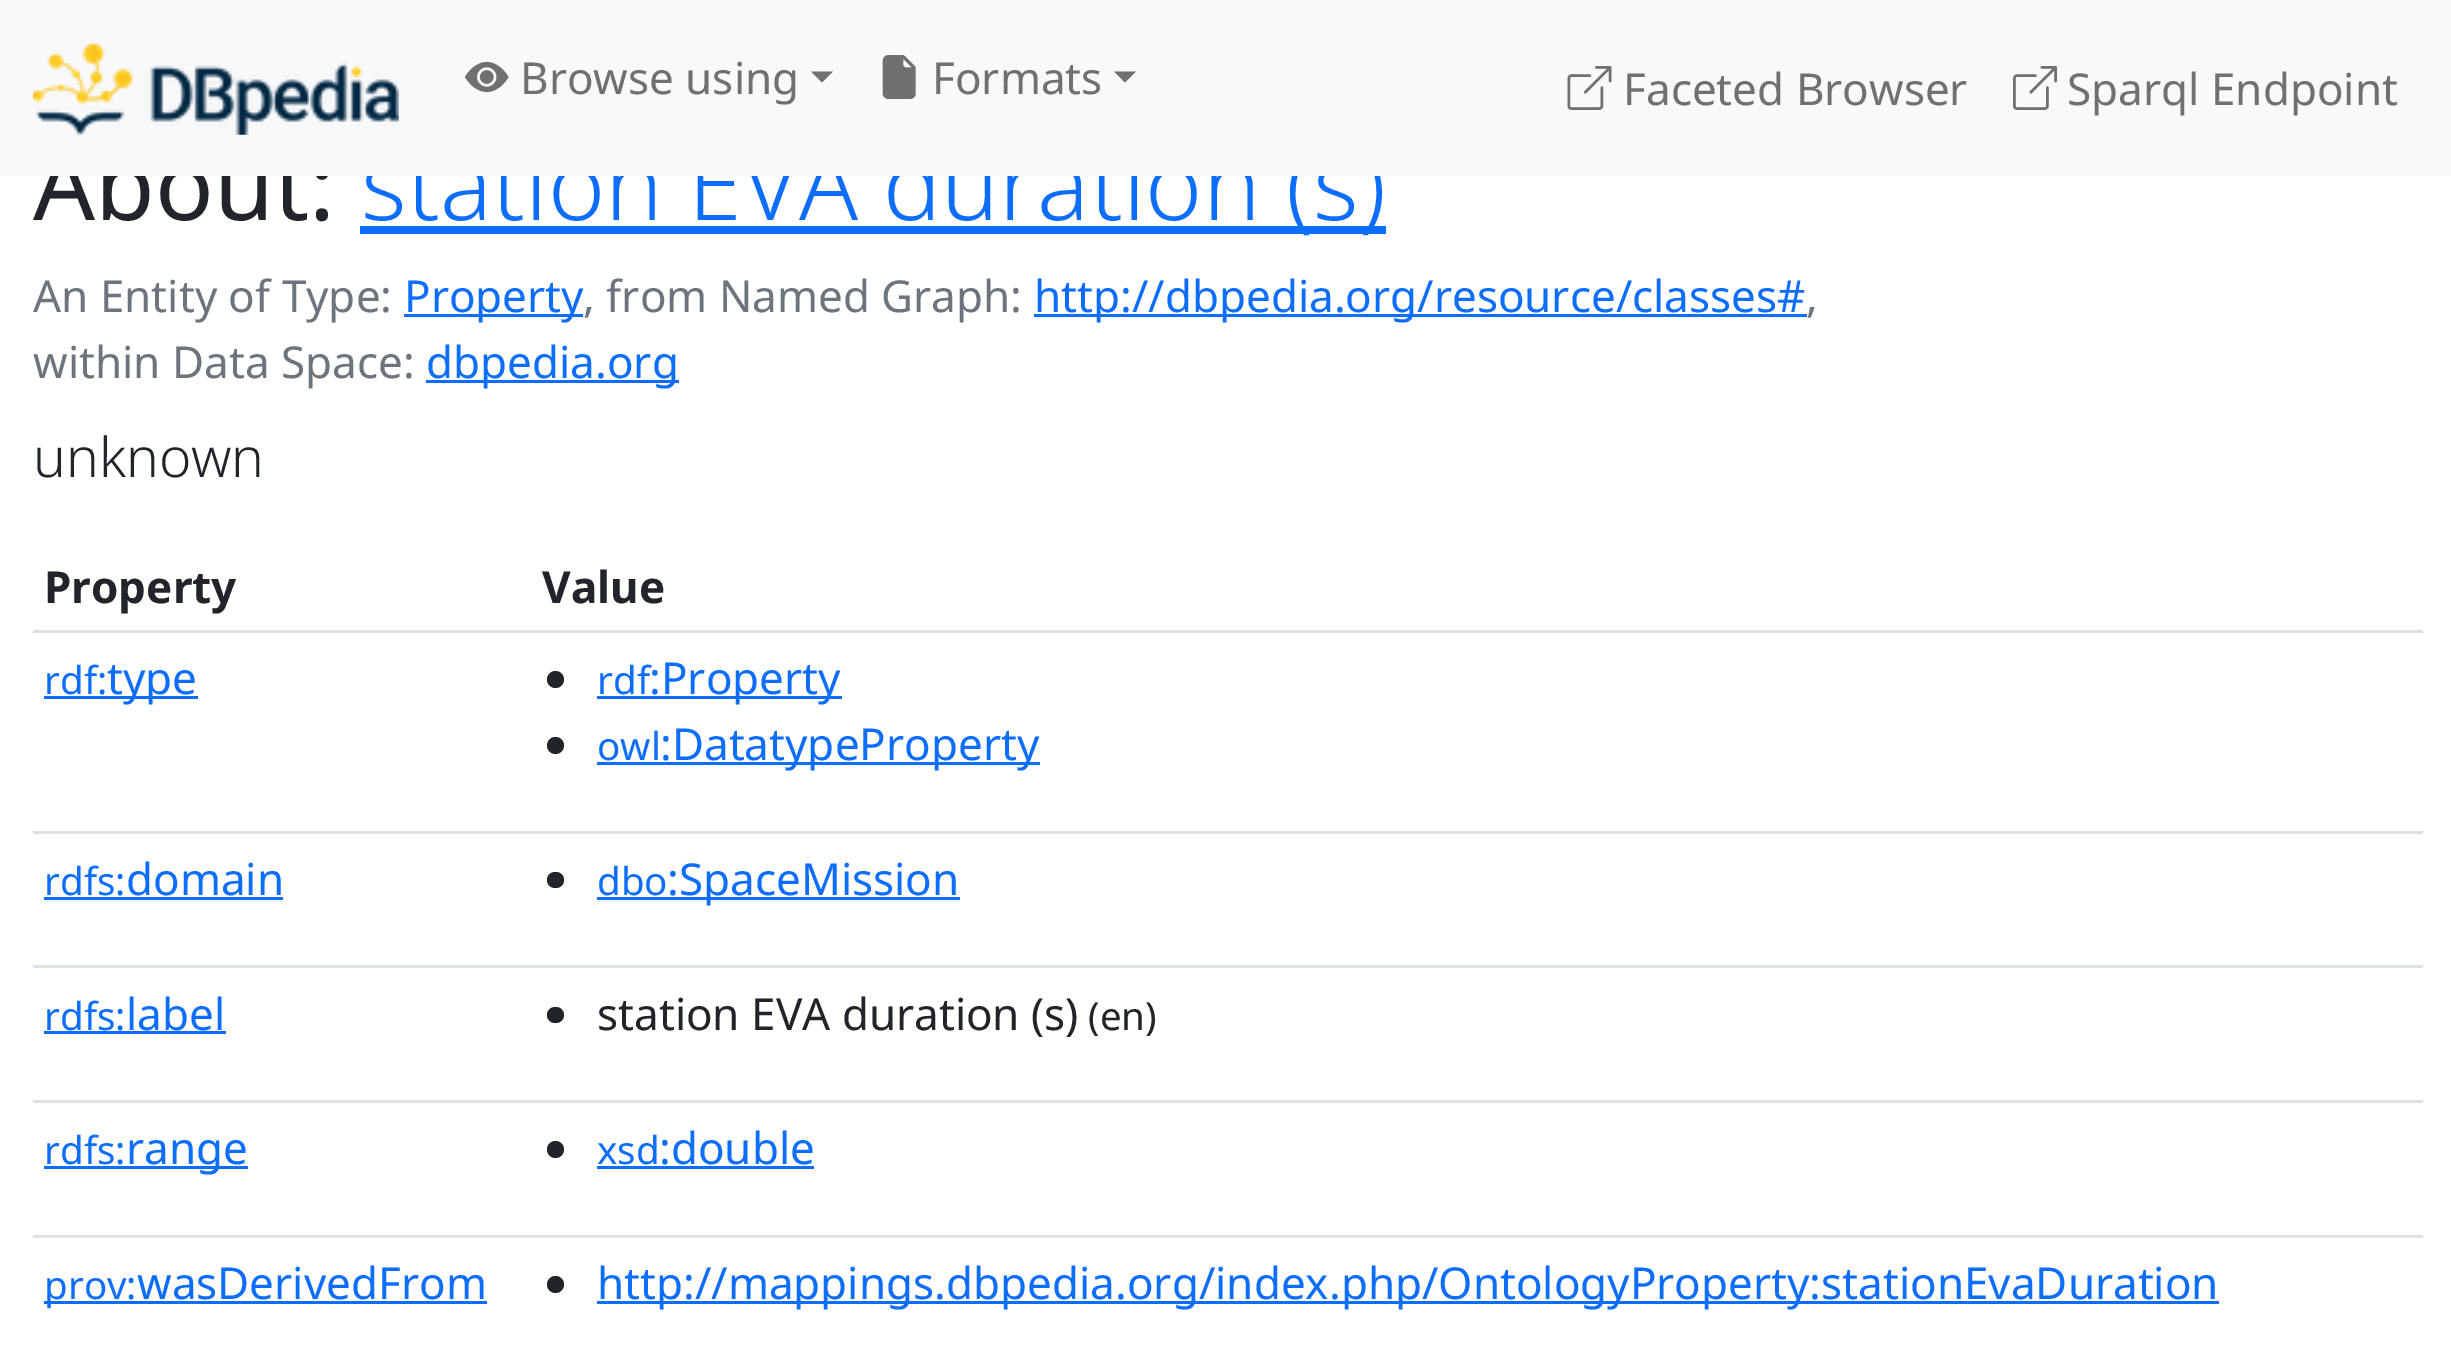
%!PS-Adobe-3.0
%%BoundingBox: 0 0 2451 1365
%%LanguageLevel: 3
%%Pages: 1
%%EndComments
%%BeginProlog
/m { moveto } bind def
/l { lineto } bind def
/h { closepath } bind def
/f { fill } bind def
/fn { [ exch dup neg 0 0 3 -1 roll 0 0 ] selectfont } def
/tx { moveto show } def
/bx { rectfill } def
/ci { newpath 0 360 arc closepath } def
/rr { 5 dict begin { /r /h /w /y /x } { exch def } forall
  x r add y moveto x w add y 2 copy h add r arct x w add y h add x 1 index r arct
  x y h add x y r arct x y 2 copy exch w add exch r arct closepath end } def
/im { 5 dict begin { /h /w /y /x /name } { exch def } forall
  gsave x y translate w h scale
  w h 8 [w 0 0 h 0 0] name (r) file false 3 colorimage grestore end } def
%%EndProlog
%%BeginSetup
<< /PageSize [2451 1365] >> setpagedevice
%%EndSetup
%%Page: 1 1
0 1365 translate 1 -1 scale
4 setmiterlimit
1 setgray
0 0 2451 1365 bx
/NotoSans-Regular 97.25 fn
0.129 0.145 0.161 setrgbcolor
(About:) 33 220 tx
0.051 0.431 0.992 setrgbcolor
360 226 1026 8 bx
/NotoSans-Light 97.25 fn
(station EVA duration \(s\)) 361 220 tx
0.973 0.976 0.98 setrgbcolor
0 0 2451 176 bx
(image0.raw) 33 43 366 92 im
(image1.raw) 464 61 45 32 im
/NotoSans-Regular 44 fn
0.439 0.439 0.443 setrgbcolor
(Browse using) 520 94 tx
811 71.5 m 833 71.5 l 822 82.5 l h f
(image2.raw) 882 55 34 44 im
(Formats) 932 94 tx
1114 71.5 m 1136 71.5 l 1125 82.5 l h f
(image3.raw) 1567 66 45 44 im
(Faceted Browser) 1623 105 tx
(image4.raw) 2013 66 44 44 im
(Sparql Endpoint) 2067 105 tx
0.424 0.459 0.49 setrgbcolor
(An Entity of Type:) 33 312 tx
0.051 0.431 0.992 setrgbcolor
404 314 179 3 bx
(Property) 404 312 tx
0.424 0.459 0.49 setrgbcolor
(, from Named Graph:) 583 312 tx
0.051 0.431 0.992 setrgbcolor
1034 314 773 3 bx
(http://dbpedia.org/resource/classes#) 1034 312 tx
0.424 0.459 0.49 setrgbcolor
(,) 1806 312 tx
(within Data Space:) 33 378 tx
0.051 0.431 0.992 setrgbcolor
426 380 253 3 bx
(dbpedia.org) 426 378 tx
/NotoSans-Light 55 fn
0.129 0.145 0.161 setrgbcolor
(unknown) 33 477 tx
/NotoSans-Bold 44 fn
(Property) 44 603 tx
0.871 0.886 0.902 setrgbcolor
33 630 2390 3 bx
0.129 0.145 0.161 setrgbcolor
(Value) 542 603 tx
/NotoSans-Regular 38.5 fn
0.051 0.431 0.992 setrgbcolor
(rdf:) 44 694 tx
44 696 154 3 bx
/NotoSans-Regular 44 fn
(type) 107 694 tx
0.871 0.886 0.902 setrgbcolor
33 831 2390 3 bx
0.129 0.145 0.161 setrgbcolor
555.5 679.5 8.5 ci f
/NotoSans-Regular 38.5 fn
0.051 0.431 0.992 setrgbcolor
(rdf) 597 694 tx
597 696 245 3 bx
/NotoSans-Regular 44 fn
(:Property) 649 694 tx
0.129 0.145 0.161 setrgbcolor
555.5 745.5 8.5 ci f
/NotoSans-Regular 38.5 fn
0.051 0.431 0.992 setrgbcolor
(owl) 597 760 tx
597 762 443 3 bx
/NotoSans-Regular 44 fn
(:DatatypeProperty) 660 760 tx
/NotoSans-Regular 38.5 fn
(rdfs:) 44 895 tx
44 897 239 3 bx
/NotoSans-Regular 44 fn
(domain) 126 895 tx
0.871 0.886 0.902 setrgbcolor
33 965 2390 3 bx
0.129 0.145 0.161 setrgbcolor
547 872 17 16 8 rr f
/NotoSans-Regular 38.5 fn
0.051 0.431 0.992 setrgbcolor
(dbo) 597 895 tx
597 897 363 3 bx
/NotoSans-Regular 44 fn
(:SpaceMission) 667 895 tx
/NotoSans-Regular 38.5 fn
(rdfs:) 44 1030 tx
44 1031 182 3 bx
/NotoSans-Regular 44 fn
(label) 126 1030 tx
0.871 0.886 0.902 setrgbcolor
33 1100 2390 3 bx
0.129 0.145 0.161 setrgbcolor
547 1007 17 16 8 rr f
(station EVA duration \(s\)) 597 1030 tx
/NotoSans-Regular 38.5 fn
(\(en\)) 1088 1030 tx
0.051 0.431 0.992 setrgbcolor
(rdfs:) 44 1164 tx
44 1166 204 3 bx
/NotoSans-Regular 44 fn
(range) 126 1164 tx
0.871 0.886 0.902 setrgbcolor
33 1235 2390 3 bx
0.129 0.145 0.161 setrgbcolor
555.5 1149.5 8.5 ci f
/NotoSans-Regular 38.5 fn
0.051 0.431 0.992 setrgbcolor
(xsd) 597 1164 tx
597 1166 217 3 bx
/NotoSans-Regular 44 fn
(:double) 659 1164 tx
44 1301 443 3 bx
/NotoSans-Regular 38.5 fn
(prov:) 44 1299 tx
/NotoSans-Regular 44 fn
(wasDerivedFrom) 137 1299 tx
0.129 0.145 0.161 setrgbcolor
555.5 1284.5 8.5 ci f
0.051 0.431 0.992 setrgbcolor
597 1301 1622 3 bx
(http://mappings.dbpedia.org/index.php/OntologyProperty:stationEvaDuration) 597 1299 tx
showpage
%%EOF
